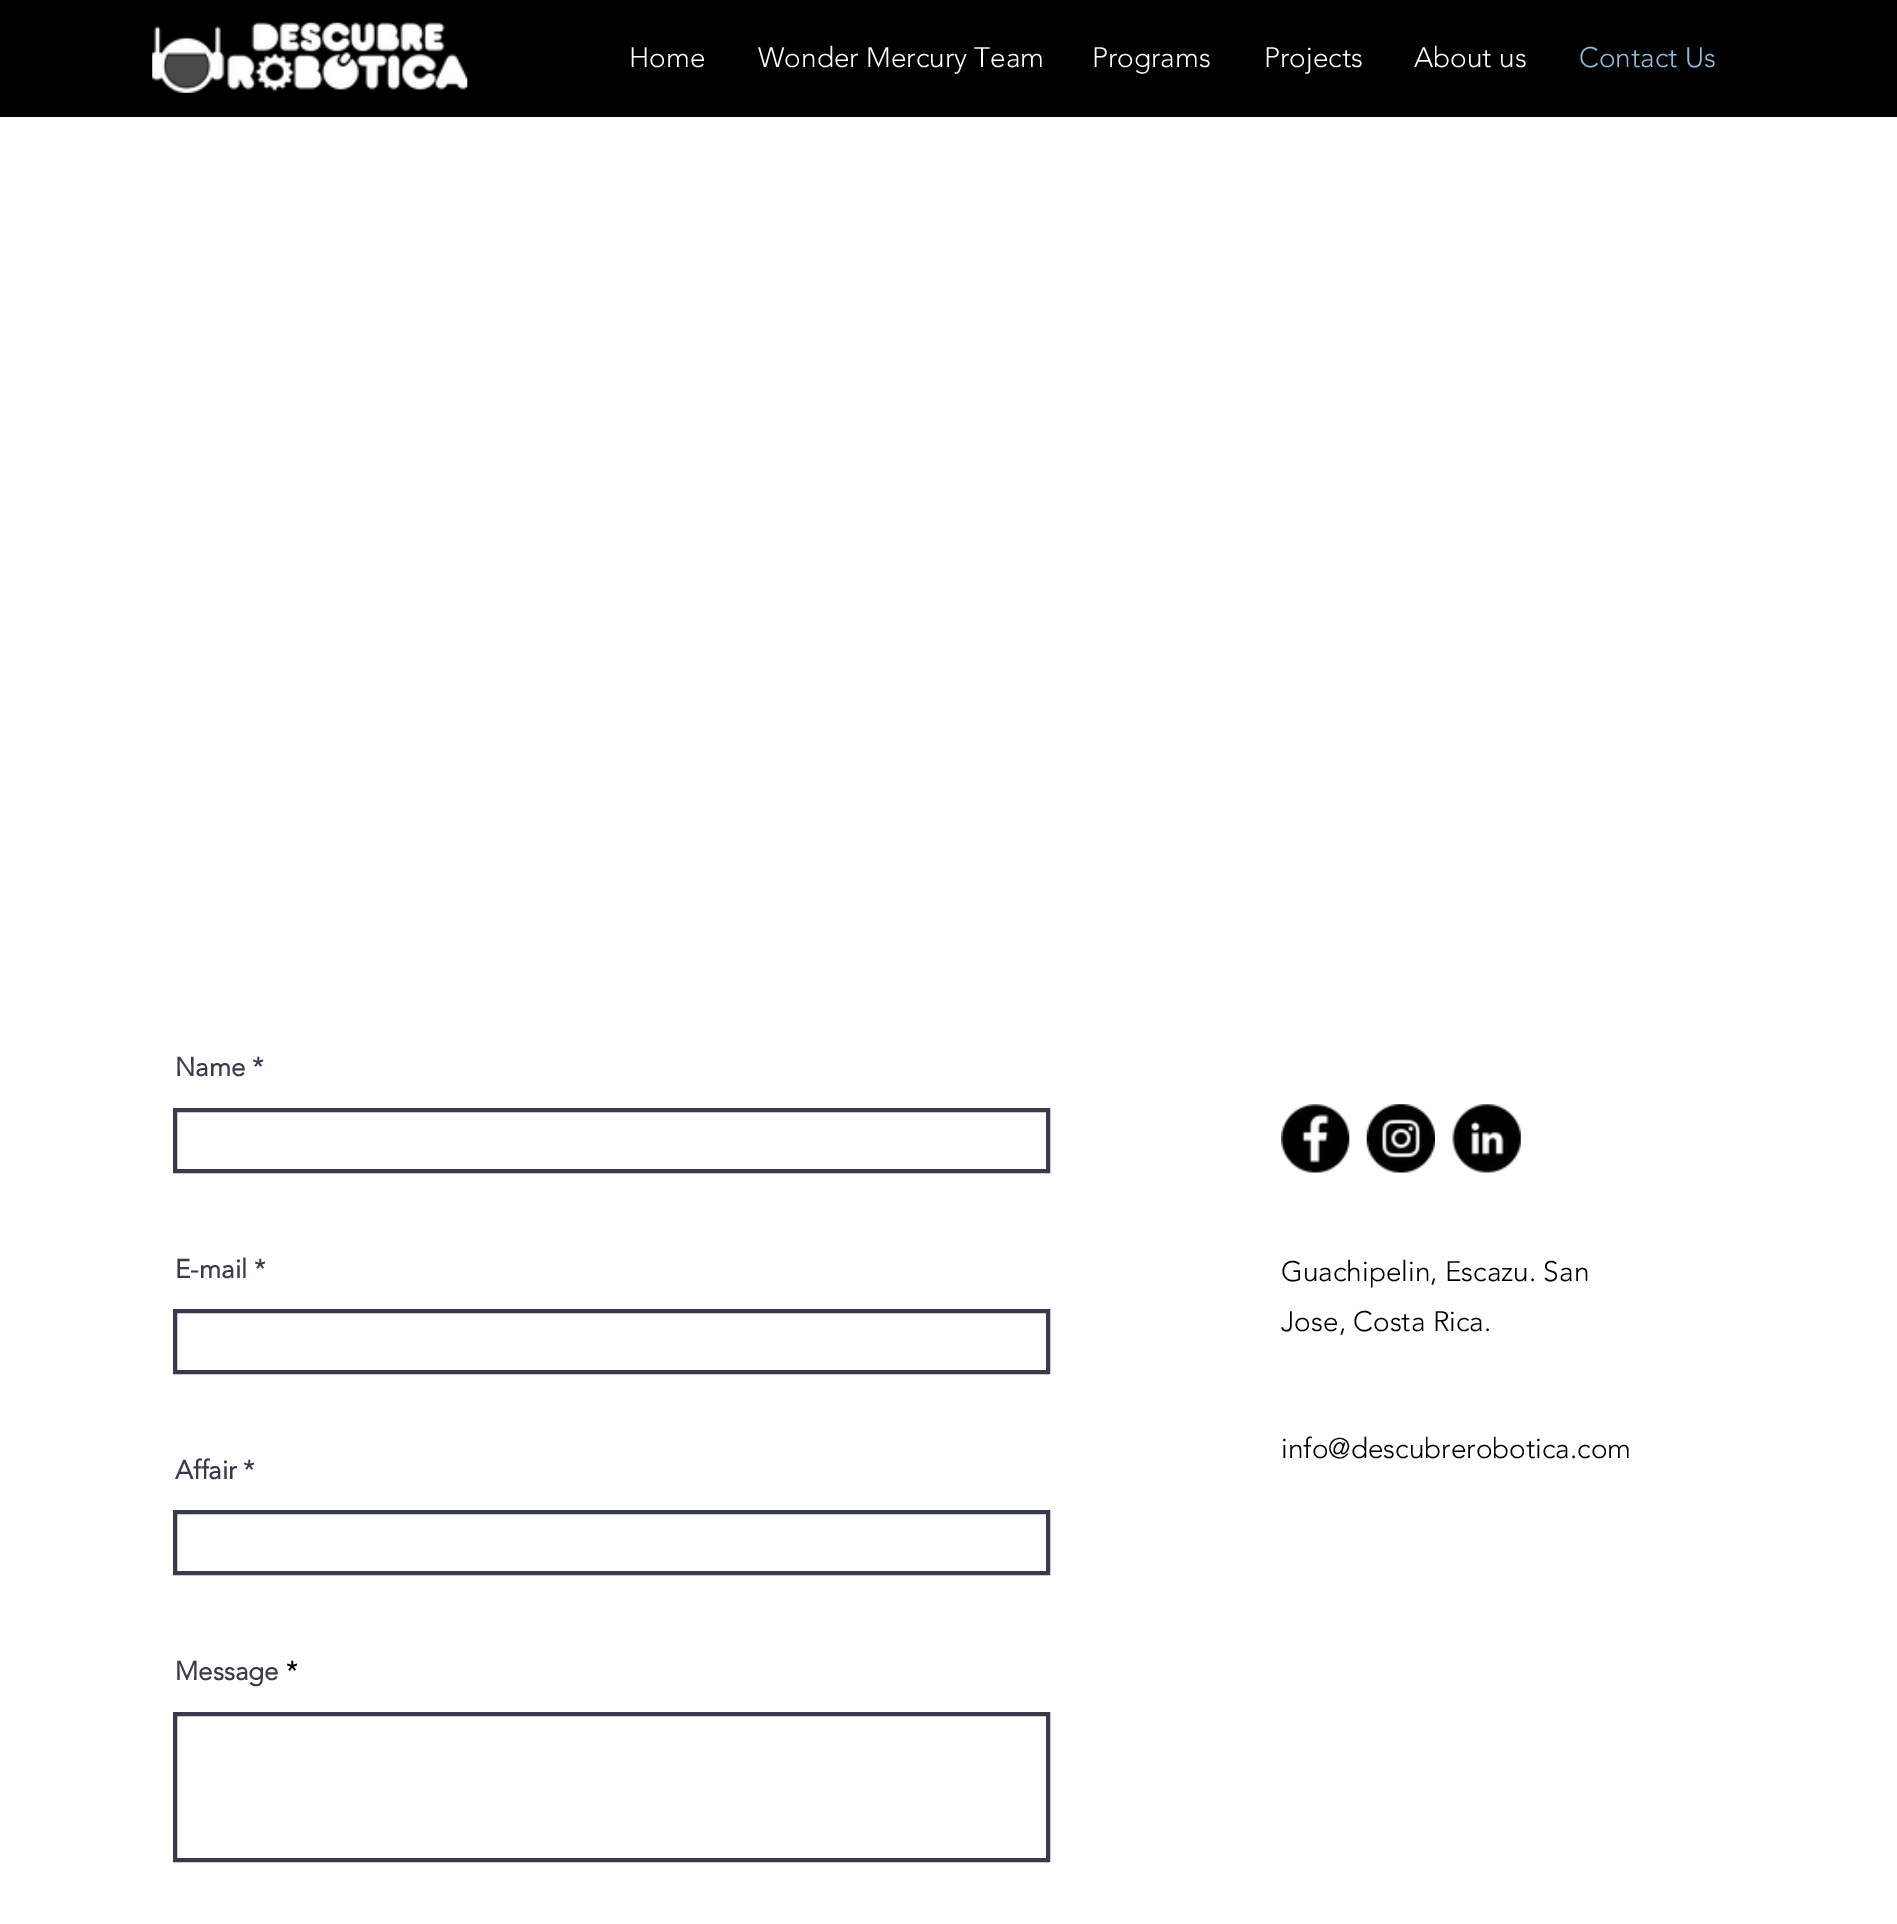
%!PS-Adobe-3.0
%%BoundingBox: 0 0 1897 1924
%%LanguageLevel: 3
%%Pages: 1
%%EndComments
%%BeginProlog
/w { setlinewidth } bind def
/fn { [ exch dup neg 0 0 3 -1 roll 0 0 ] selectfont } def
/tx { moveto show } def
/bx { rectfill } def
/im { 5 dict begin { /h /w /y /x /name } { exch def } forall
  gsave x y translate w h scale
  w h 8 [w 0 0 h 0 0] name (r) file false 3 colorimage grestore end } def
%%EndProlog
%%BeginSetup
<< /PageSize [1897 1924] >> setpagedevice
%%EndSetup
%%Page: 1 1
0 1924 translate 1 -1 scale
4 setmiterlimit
1 setgray
0 0 1897 1924 bx
0 setgray
0 0 1897 117 bx
(image0.raw) 152 22 316 71 im
/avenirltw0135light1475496-Light 28 fn
1 setgray
(Home) 629 67 tx
(Wonder Mercury Team) 758 67 tx
(Programs) 1092 67 tx
(Projects) 1264 67 tx
(About us) 1414 67 tx
0.549 0.737 0.859 setrgbcolor
(Contact Us) 1579 67 tx
/avenirltw0135light1475496-Bold 26 fn
0.216 0.231 0.302 setrgbcolor
(Name *) 175 1076 tx
4 w
175 1110 873 61 rectstroke
(E-mail *) 175 1278 tx
175 1311 873 61 rectstroke
(Affair *) 175 1479 tx
175 1512 873 61 rectstroke
(Message) 175 1680 tx
0 setgray
(*) 286 1680 tx
0.216 0.231 0.302 setrgbcolor
175 1714 873 146 rectstroke
(image1.raw) 1281 1104 69 69 im
(image2.raw) 1366 1104 69 69 im
(image3.raw) 1452 1104 69 69 im
/avenirltw0135light1475496-Light 28 fn
0 setgray
(Guachipelin, Escazu. San) 1281 1281 tx
(Jose, Costa Rica.) 1281 1331 tx
(info@descubrerobotica.com) 1281 1458 tx
showpage
%%EOF
